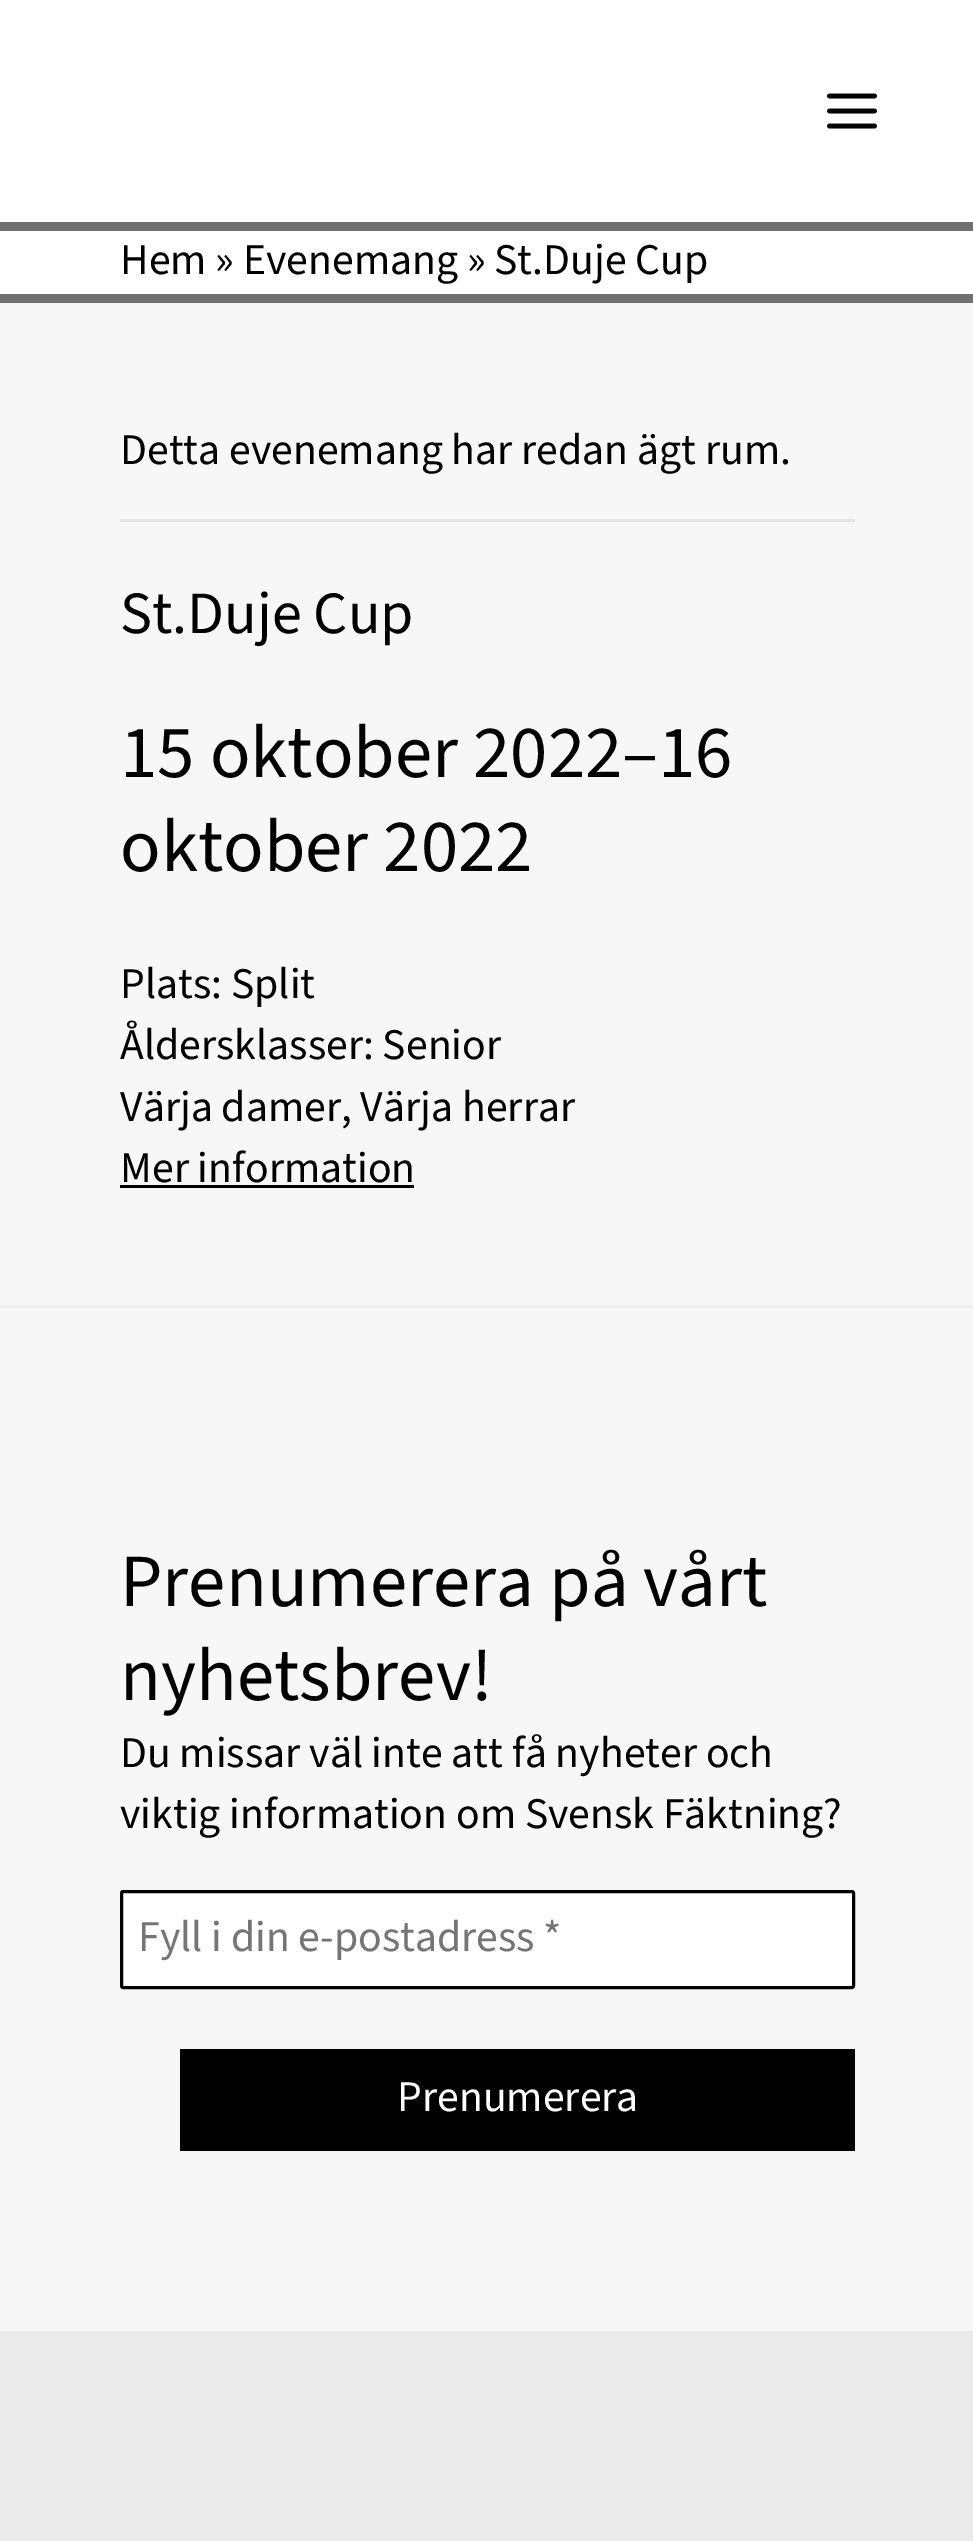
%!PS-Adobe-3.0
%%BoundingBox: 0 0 973 2541
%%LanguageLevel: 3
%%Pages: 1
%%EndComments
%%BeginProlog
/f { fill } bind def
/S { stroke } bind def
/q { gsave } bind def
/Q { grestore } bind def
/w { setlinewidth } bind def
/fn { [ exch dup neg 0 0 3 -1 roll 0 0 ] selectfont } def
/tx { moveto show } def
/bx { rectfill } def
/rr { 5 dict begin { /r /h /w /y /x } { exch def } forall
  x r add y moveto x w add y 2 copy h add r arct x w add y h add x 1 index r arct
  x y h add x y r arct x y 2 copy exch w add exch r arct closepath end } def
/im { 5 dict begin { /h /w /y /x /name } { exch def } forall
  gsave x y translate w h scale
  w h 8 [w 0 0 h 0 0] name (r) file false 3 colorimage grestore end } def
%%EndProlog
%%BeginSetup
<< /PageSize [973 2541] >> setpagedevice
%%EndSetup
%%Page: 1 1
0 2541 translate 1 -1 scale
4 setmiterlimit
0.969 setgray
0 0 973 2541 bx
1 setgray
0 0 973 222 bx
0.439 setgray
0 222 973 9 bx
(image0.raw) 827 93 50 36 im
1 setgray
0 231 973 63 bx
0.439 setgray
0 294 973 9 bx
/SourceSans3-Regular 43.75 fn
0 setgray
(Hem » Evenemang » St.Duje Cup) 120 274 tx
0.894 setgray
120 519 735 3 bx
0 setgray
(Detta evenemang har redan ägt rum.) 120 464 tx
/SourceSans3-Regular 60 fn
(St.Duje Cup) 120 633 tx
/SourceSans3-Regular 75 fn
(15 oktober 2022–16) 120 777 tx
(oktober 2022) 120 871 tx
/SourceSans3-Regular 43.75 fn
(Plats: Split) 120 998 tx
(Åldersklasser: Senior) 120 1059 tx
(Värja damer, Värja herrar) 120 1121 tx
(Mer information) 120 1182 tx
120 1185 294 3 bx
0.933 setgray
0 1305 973 3 bx
/SourceSans3-Regular 75 fn
0 setgray
(Prenumerera på vårt) 120 1606 tx
(nyhetsbrev!) 120 1700 tx
/SourceSans3-Regular 43.75 fn
(Du missar väl inte att få nyheter och) 120 1767 tx
(viktig information om Svensk Fäktning?) 120 1828 tx
1 setgray
121.5 1891.5 732 96 1.5 rr q f Q
0 setgray
3 w
S
0.459 setgray
(Fyll i din e-postadress *) 138 1951 tx
0 setgray
180 2049 675 102 bx
1 setgray
(Prenumerera) 397 2111 tx
0.918 setgray
0 2331 973 210 bx
showpage
%%EOF
